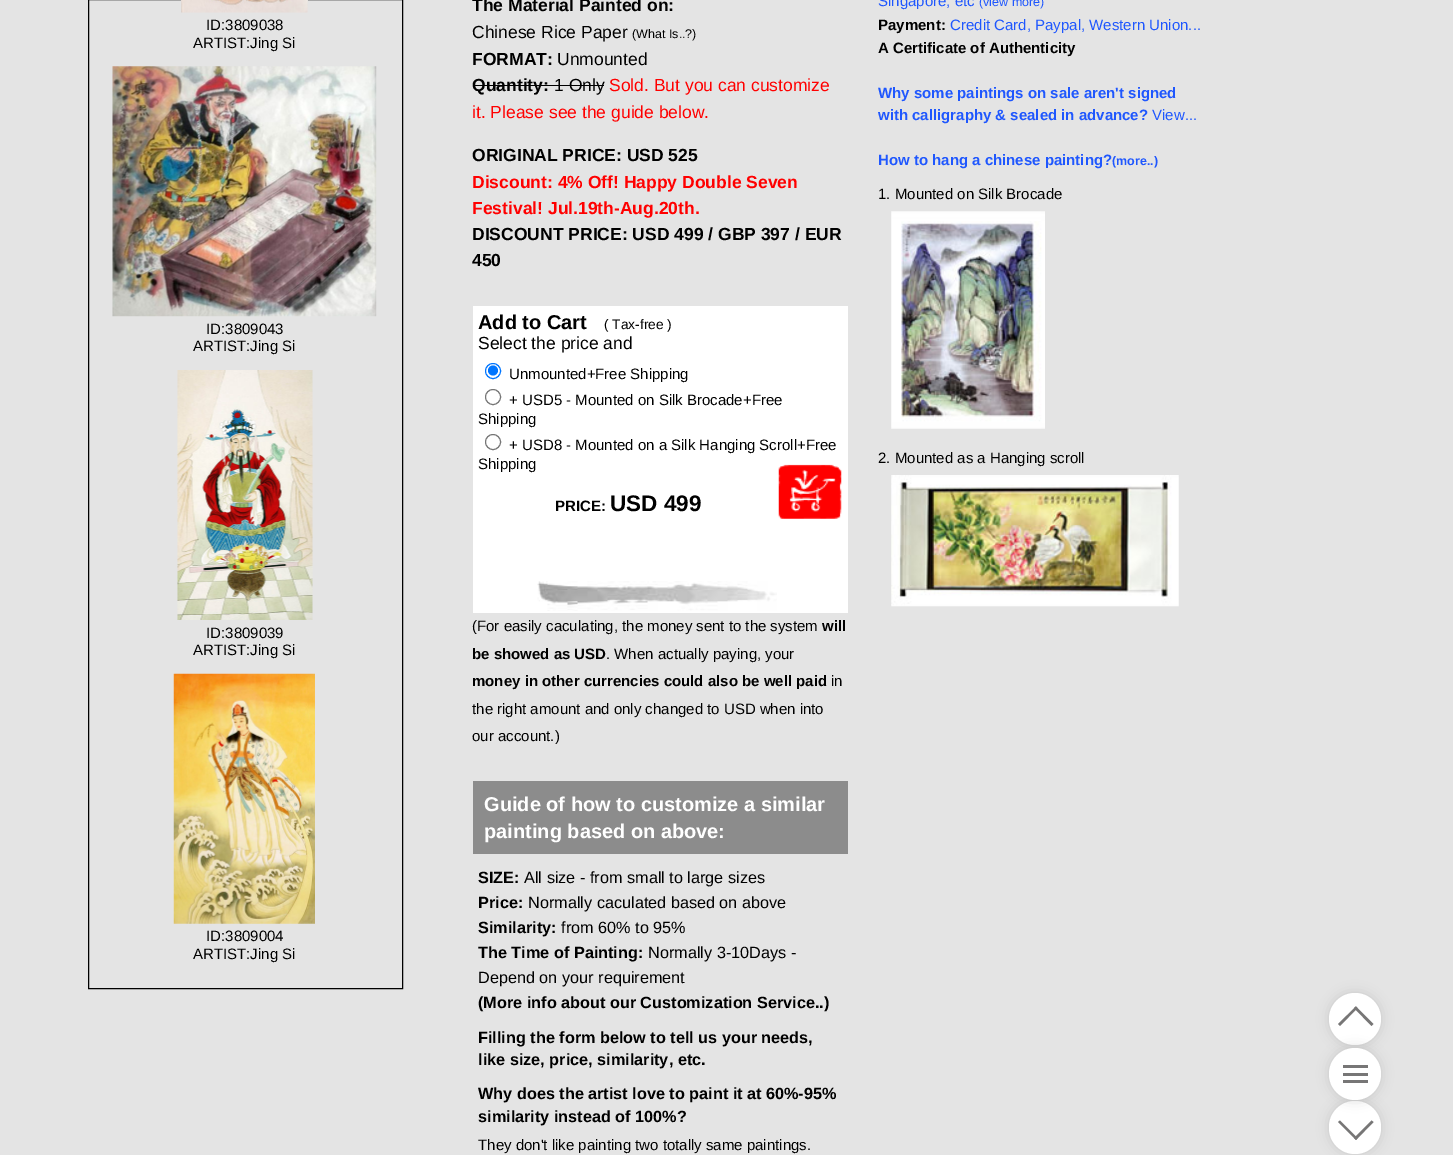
%!PS-Adobe-3.0
%%BoundingBox: 0 0 1453 1155
%%LanguageLevel: 3
%%Pages: 1
%%EndComments
%%BeginProlog
/m { moveto } bind def
/l { lineto } bind def
/h { closepath } bind def
/f { fill } bind def
/S { stroke } bind def
/fn { [ exch dup neg 0 0 3 -1 roll 0 0 ] selectfont } def
/tx { moveto show } def
/bx { rectfill } def
/al { dup .setfillconstantalpha .setstrokeconstantalpha } def
/ci { newpath 0 360 arc closepath } def
/rr { 5 dict begin { /r /h /w /y /x } { exch def } forall
  x r add y moveto x w add y 2 copy h add r arct x w add y h add x 1 index r arct
  x y h add x y r arct x y 2 copy exch w add exch r arct closepath end } def
/sh { 12 dict begin { /a /b /q /h /w /y /x } { exch def } forall gsave /was 0 def
  9 -2 -9 { dup b mul 4 div /e exch def 1 sub .425 mul 2.718 exch exp 1 add a .99 .min exch div /now exch def
    1 1 now sub 1 was sub div sub al /was now def
    w h .min e 2 mul add 0 gt { x e sub y e sub w e 2 mul add h e 2 mul add
      q e add b .6 mul add w h .min 2 div e add .min 0 .max rr fill } if } for grestore end } def
/im { 5 dict begin { /h /w /y /x /name } { exch def } forall
  gsave x y translate w h scale
  w h 8 [w 0 0 h 0 0] name (r) file false 3 colorimage grestore end } def
%%EndProlog
%%BeginSetup
<< /PageSize [1453 1155] /PageUsesTransparency true >> setpagedevice
%%EndSetup
%%Page: 1 1
0 .pushpdf14devicefilter
0 1155 translate 1 -1 scale
4 setmiterlimit
0.894 setgray
0 0 1453 1155 bx
0 setgray
88.5 -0.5 314 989 rectstroke
(image0.raw) 181 0 127 13 im
/LiberationSans-Regular 15 fn
(ID:3809038) 206 30 tx
(ARTIST:Jing Si) 193 48 tx
(image1.raw) 112 66 265 251 im
(ID:3809043) 206 334 tx
(ARTIST:Jing Si) 193 351 tx
(image2.raw) 177 370 136 250 im
(ID:3809039) 206 638 tx
(ARTIST:Jing Si) 193 655 tx
(image3.raw) 173 673 142 251 im
(ID:3809004) 206 941 tx
(ARTIST:Jing Si) 193 959 tx
/LiberationSans-Bold 17.5 fn
(The Material Painted on:) 472 11 tx
/LiberationSans-Regular 17.5 fn
(Chinese Rice Paper) 472 38 tx
/LiberationSans-Regular 12.5 fn
(\(What Is..?\)) 632 38 tx
/LiberationSans-Bold 17.5 fn
(FORMAT:) 472 65 tx
/LiberationSans-Regular 17.5 fn
(Unmounted) 557 65 tx
/LiberationSans-Bold 17.5 fn
(Quantity:) 472 91 tx
473 85 76 1 bx
/LiberationSans-Regular 17.5 fn
(1 Only) 554 91 tx
549 85 55 1 bx
1 0 0 setrgbcolor
(Sold. But you can customize) 609 91 tx
(it. Please see the guide below.) 472 118 tx
/LiberationSans-Bold 17.5 fn
0 setgray
(ORIGINAL PRICE: USD 525) 472 161 tx
1 0 0 setrgbcolor
(Discount: 4% Off! Happy Double Seven) 472 188 tx
(Festival! Jul.19th-Aug.20th.) 472 214 tx
0 setgray
(DISCOUNT PRICE: USD 499 / GBP 397 / EUR) 472 240 tx
(450) 472 266 tx
1 setgray
473 306 375 307 bx
(image4.raw) 537 581 240 30 im
/LiberationSans-Bold 20 fn
0 setgray
(Add to Cart) 478 329 tx
/LiberationSans-Regular 13.75 fn
(\( Tax-free \)) 604 329 tx
/LiberationSans-Regular 17.5 fn
(Select the price and) 478 349 tx
0 0.459 1 setrgbcolor
493 371 7.5 ci S
493 370.5 5 ci f
/LiberationSans-Regular 15 fn
0 setgray
(Unmounted+Free Shipping) 509 379 tx
0.463 setgray
493 397 7.5 ci S
0 setgray
(+ USD5 - Mounted on Silk Brocade+Free) 509 405 tx
(Shipping) 478 424 tx
0.463 setgray
493 442 7.5 ci S
0 setgray
(+ USD8 - Mounted on a Silk Hanging Scroll+Free) 509 450 tx
(Shipping) 478 469 tx
/LiberationSans-Bold 15 fn
(PRICE:) 555 511 tx
/LiberationSans-Bold 22.5 fn
(USD 499) 610 511 tx
(image5.raw) 778 464 64 55 im
/LiberationSans-Regular 15 fn
(\(For easily caculating, the money sent to the system) 472 631 tx
/LiberationSans-Bold 15 fn
(will) 822 631 tx
(be showed as USD) 472 659 tx
/LiberationSans-Regular 15 fn
(. When actually paying, your) 606 659 tx
/LiberationSans-Bold 15 fn
(money in other currencies could also be well paid) 472 686 tx
/LiberationSans-Regular 15 fn
(in) 831 686 tx
(the right amount and only changed to USD when into) 472 714 tx
(our account.\)) 472 741 tx
0.549 setgray
473 781 375 73 bx
/LiberationSans-Bold 20 fn
1 setgray
(Guide of how to customize a similar) 484 811 tx
(painting based on above:) 484 838 tx
/LiberationSans-Bold 16.25 fn
0 setgray
(SIZE:) 478 883 tx
/LiberationSans-Regular 16.25 fn
(All size - from small to large sizes) 524 883 tx
/LiberationSans-Bold 16.25 fn
(Price:) 478 908 tx
/LiberationSans-Regular 16.25 fn
(Normally caculated based on above) 528 908 tx
/LiberationSans-Bold 16.25 fn
(Similarity:) 478 933 tx
/LiberationSans-Regular 16.25 fn
(from 60% to 95%) 561 933 tx
/LiberationSans-Bold 16.25 fn
(The Time of Painting:) 478 958 tx
/LiberationSans-Regular 16.25 fn
(Normally 3-10Days -) 648 958 tx
(Depend on your requirement) 478 983 tx
/LiberationSans-Bold 16.25 fn
(\(More info about our Customization Service..\)) 478 1008 tx
(Filling the form below to tell us your needs,) 478 1043 tx
(like size, price, similarity, etc.) 478 1065 tx
(Why does the artist love to paint it at 60%-95%) 478 1099 tx
(similarity instead of 100%?) 478 1122 tx
/LiberationSans-Regular 15 fn
(They don't like painting two totally same paintings.) 478 1150 tx
0.122 0.341 0.996 setrgbcolor
(Singapore, etc) 878 6 tx
/LiberationSans-Regular 12.5 fn
(\(view more\)) 979 6 tx
/LiberationSans-Bold 15 fn
0 setgray
(Payment:) 878 30 tx
/LiberationSans-Regular 15 fn
0.122 0.341 0.996 setrgbcolor
(Credit Card, Paypal, Western Union...) 950 30 tx
/LiberationSans-Bold 15 fn
0 setgray
(A Certificate of Authenticity) 878 53 tx
0.122 0.341 0.996 setrgbcolor
(Why some paintings on sale aren't signed) 878 98 tx
(with calligraphy & sealed in advance?) 878 120 tx
/LiberationSans-Regular 15 fn
(View...) 1152 120 tx
/LiberationSans-Bold 15 fn
(How to hang a chinese painting?) 878 165 tx
/LiberationSans-Bold 12.5 fn
(\(more..\)) 1112 165 tx
/LiberationSans-Regular 15 fn
0 setgray
(1. Mounted on Silk Brocade) 878 199 tx
(image6.raw) 891 211 154 218 im
(2. Mounted as a Hanging scroll) 878 463 tx
(image7.raw) 891 475 288 132 im
0.62 setgray
1329 993 52 52 26 6 0.4 sh
1 setgray
1355 1019 26 ci f
0.467 0.463 0.463 setrgbcolor
1356 1006.5 m 1373.5 1024 l 1371.5 1026 l 1354 1008 l h f
1356 1006.5 m 1357.5 1008 l 1340 1026 l 1338 1024 l h f
0.62 setgray
1329 1101 52 53 26 6 0.4 sh
1 setgray
1329 1101 52 53 26 rr f
0.62 setgray
1329 1048 52 52 26 6 0.4 sh
1 setgray
1355 1074 26 ci f
0.467 0.463 0.463 setrgbcolor
1343 1073 25 3 bx
1343 1065 25 3 bx
1343 1080 25 3 bx
1371.5 1120.5 m 1373.5 1122 l 1356 1140 l 1354 1138 l h f
1340 1120.5 m 1357.5 1138 l 1356 1140 l 1338 1122 l h f
.poppdf14devicefilter showpage
%%EOF
